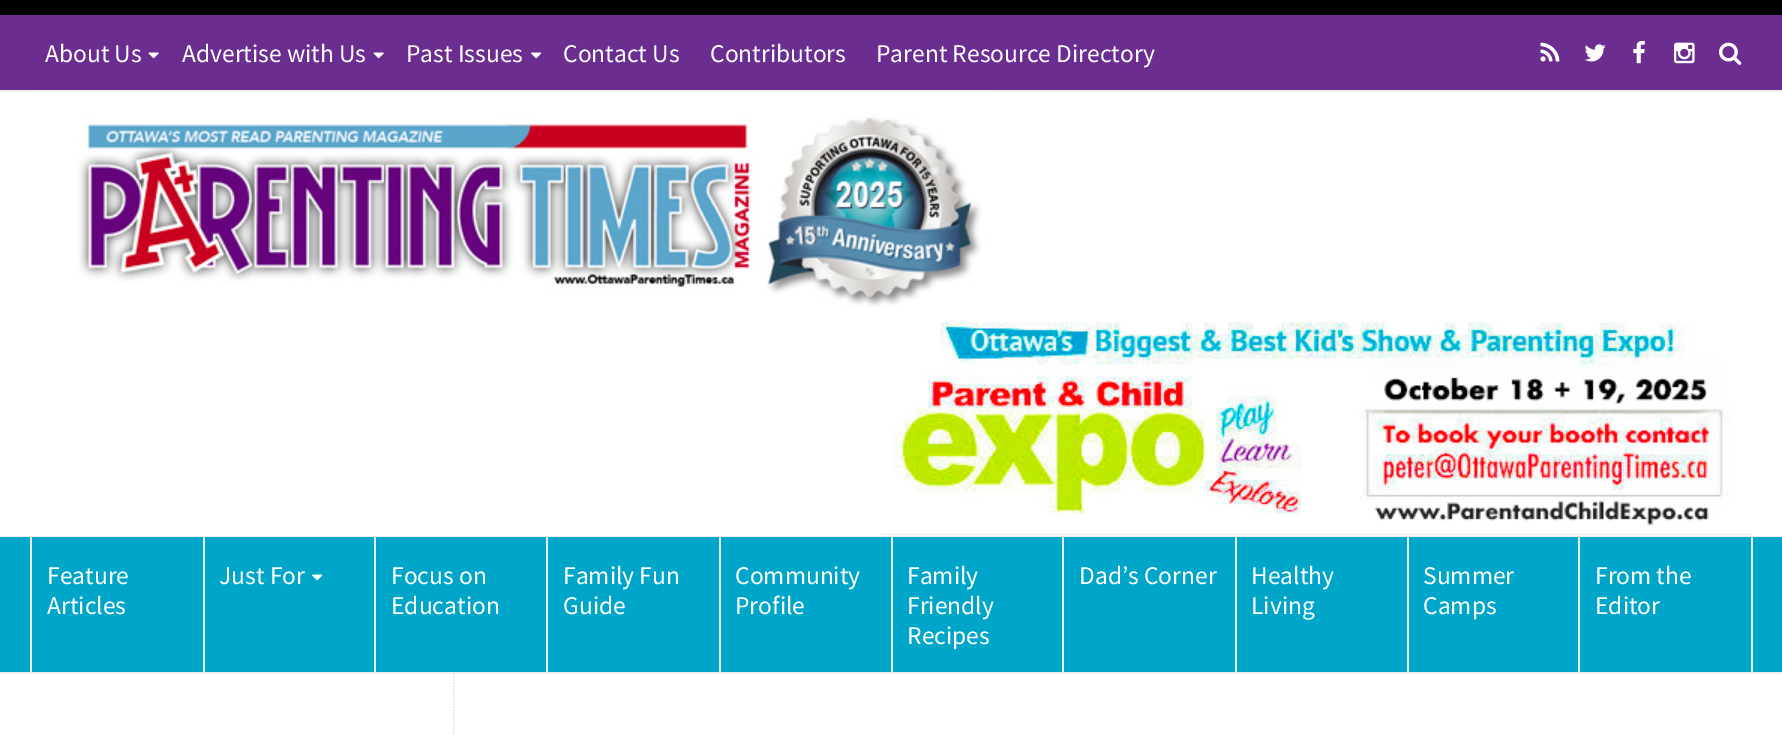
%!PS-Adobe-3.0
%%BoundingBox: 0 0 1782 735
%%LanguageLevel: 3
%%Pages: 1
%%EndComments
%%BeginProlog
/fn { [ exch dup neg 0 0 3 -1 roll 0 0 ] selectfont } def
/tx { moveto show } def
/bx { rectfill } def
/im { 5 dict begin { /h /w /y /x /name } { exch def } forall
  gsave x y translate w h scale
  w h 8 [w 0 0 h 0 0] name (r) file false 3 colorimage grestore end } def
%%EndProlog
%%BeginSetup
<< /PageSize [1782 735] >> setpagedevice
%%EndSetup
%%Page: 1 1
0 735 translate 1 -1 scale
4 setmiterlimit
1 setgray
0 0 1782 735 bx
0 setgray
0 0 1782 15 bx
0.42 0.18 0.565 setrgbcolor
0 15 1782 75 bx
0.933 setgray
0 90 1782 2 bx
/SourceSansPro-Regular 25.5 fn
1 setgray
(About Us) 45 62 tx
(image0.raw) 148 52 11 7 im
(Advertise with Us) 182 62 tx
(image0.raw) 373 52 11 7 im
(Past Issues) 406 62 tx
(image1.raw) 531 52 11 7 im
(Contact Us) 563 62 tx
(Contributors) 710 62 tx
(Parent Resource Directory) 876 62 tx
(image2.raw) 1540 42 20 20 im
(image3.raw) 1584 44 22 18 im
(image4.raw) 1633 40 12 24 im
(image5.raw) 1674 42 21 22 im
(image6.raw) 1719 42 23 23 im
0.933 setgray
0 536 1782 1 bx
(image7.raw) 30 91 963 216 im
(image8.raw) 881 321 871 215 im
0 0.651 0.788 setrgbcolor
0 537 1782 135 bx
0.933 setgray
0 672 1782 2 bx
30 537 2 135 bx
1 setgray
(Feature) 47 584 tx
(Articles) 47 614 tx
0.933 setgray
203 537 2 135 bx
1 setgray
(Just For) 219 584 tx
(image9.raw) 312 574 11 7 im
0.933 setgray
374 537 2 135 bx
1 setgray
(Focus on) 391 584 tx
(Education) 391 614 tx
0.933 setgray
546 537 2 135 bx
1 setgray
(Family Fun) 563 584 tx
(Guide) 563 614 tx
0.933 setgray
719 537 2 135 bx
1 setgray
(Community) 735 584 tx
(Profile) 735 614 tx
0.933 setgray
891 537 2 135 bx
1 setgray
(Family) 907 584 tx
(Friendly) 907 614 tx
(Recipes) 907 644 tx
0.933 setgray
1062 537 2 135 bx
1 setgray
(Dad’s Corner) 1079 584 tx
0.933 setgray
1235 537 2 135 bx
1 setgray
(Healthy) 1251 584 tx
(Living) 1251 614 tx
0.933 setgray
1407 537 2 135 bx
1 setgray
(Summer) 1423 584 tx
(Camps) 1423 614 tx
0.933 setgray
1751 537 2 135 bx
1578 537 2 135 bx
1 setgray
(From the) 1595 584 tx
(Editor) 1595 614 tx
(image10.raw) 453 673 2 62 im
showpage
%%EOF
